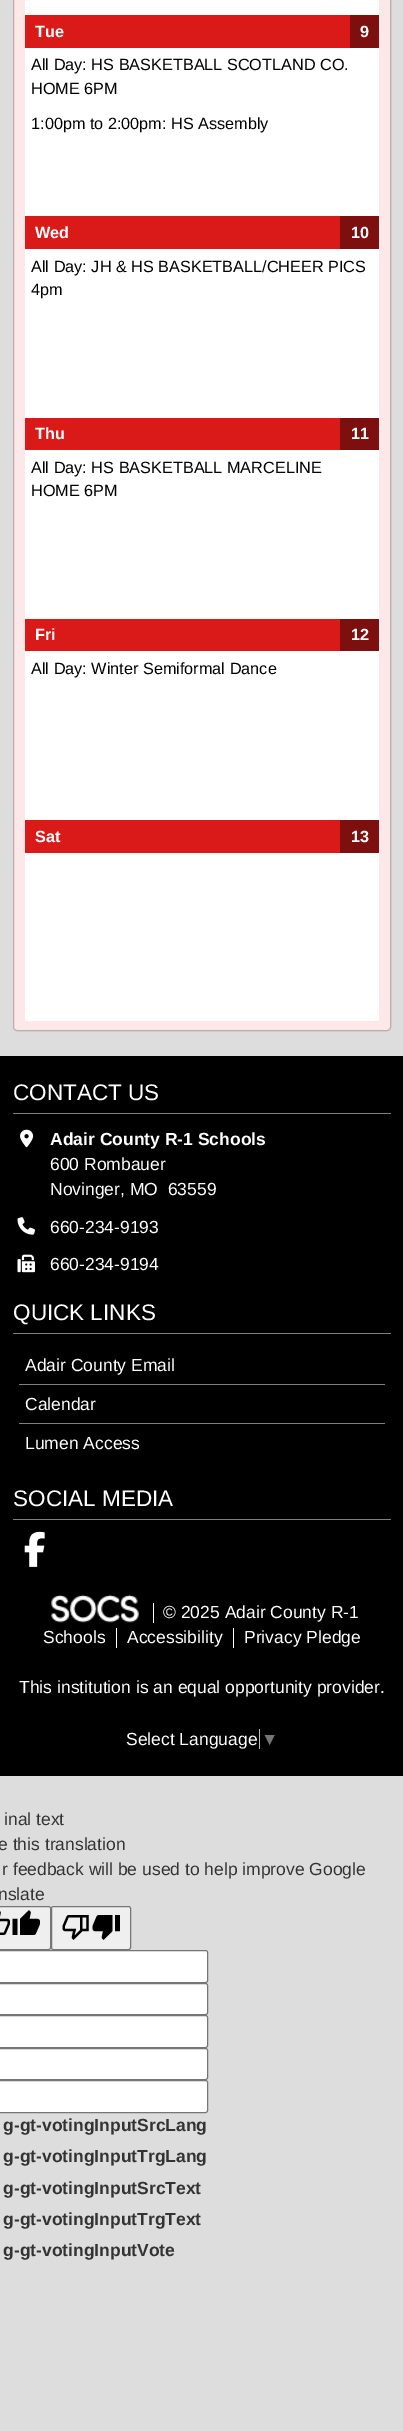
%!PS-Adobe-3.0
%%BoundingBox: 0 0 403 2431
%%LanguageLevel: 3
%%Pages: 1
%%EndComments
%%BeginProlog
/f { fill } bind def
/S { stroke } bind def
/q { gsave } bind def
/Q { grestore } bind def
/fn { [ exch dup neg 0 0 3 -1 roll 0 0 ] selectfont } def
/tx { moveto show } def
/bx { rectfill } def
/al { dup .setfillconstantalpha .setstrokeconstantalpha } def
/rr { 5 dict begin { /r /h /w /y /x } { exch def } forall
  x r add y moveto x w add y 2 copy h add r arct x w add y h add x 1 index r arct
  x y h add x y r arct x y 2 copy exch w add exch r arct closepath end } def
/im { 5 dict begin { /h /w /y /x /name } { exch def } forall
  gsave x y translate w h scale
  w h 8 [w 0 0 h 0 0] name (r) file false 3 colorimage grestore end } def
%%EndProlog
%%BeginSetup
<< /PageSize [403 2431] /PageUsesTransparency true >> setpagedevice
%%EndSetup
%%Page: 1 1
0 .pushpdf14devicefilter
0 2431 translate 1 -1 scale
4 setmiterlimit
0.867 setgray
0 0 403 2431 bx
0.988 0.91 0.91 setrgbcolor
13 -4 378 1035 4 rr f
0.25 al
0 setgray
13.5 -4.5 377 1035 3.5 rr S
1 al
1 setgray
25 0 354 15 bx
25 48 354 168 bx
0.855 0.098 0.098 setrgbcolor
25 15 325 33 bx
/LiberationSans-Bold 16.25 fn
1 setgray
(Tue) 35 37 tx
0.494 0.059 0.059 setrgbcolor
350 15 29 33 bx
1 setgray
(9) 360 37 tx
/LiberationSans-Regular 16.25 fn
0 setgray
(All Day: HS BASKETBALL SCOTLAND CO.) 31 70 tx
(HOME 6PM) 31 94 tx
(1:00pm to 2:00pm: HS Assembly) 31 129 tx
1 setgray
25 249 354 169 bx
0.855 0.098 0.098 setrgbcolor
25 216 315 33 bx
/LiberationSans-Bold 16.25 fn
1 setgray
(Wed) 35 238 tx
0.494 0.059 0.059 setrgbcolor
340 216 39 33 bx
1 setgray
(10) 351 238 tx
/LiberationSans-Regular 16.25 fn
0 setgray
(All Day: JH & HS BASKETBALL/CHEER PICS) 31 272 tx
(4pm) 31 295 tx
1 setgray
25 450 354 169 bx
0.855 0.098 0.098 setrgbcolor
25 418 315 32 bx
/LiberationSans-Bold 16.25 fn
1 setgray
(Thu) 35 439 tx
0.494 0.059 0.059 setrgbcolor
340 418 39 32 bx
1 setgray
(11) 351 439 tx
/LiberationSans-Regular 16.25 fn
0 setgray
(All Day: HS BASKETBALL MARCELINE) 31 473 tx
(HOME 6PM) 31 496 tx
1 setgray
25 651 354 169 bx
0.855 0.098 0.098 setrgbcolor
25 619 315 32 bx
/LiberationSans-Bold 16.25 fn
1 setgray
(Fri) 35 640 tx
0.494 0.059 0.059 setrgbcolor
340 619 39 32 bx
1 setgray
(12) 351 640 tx
/LiberationSans-Regular 16.25 fn
0 setgray
(All Day: Winter Semiformal Dance) 31 674 tx
1 setgray
25 853 354 168 bx
0.855 0.098 0.098 setrgbcolor
25 820 315 33 bx
/LiberationSans-Bold 16.25 fn
1 setgray
(Sat) 35 842 tx
0.494 0.059 0.059 setrgbcolor
340 820 39 33 bx
1 setgray
(13) 351 842 tx
0 setgray
0 1056 403 720 bx
0.502 setgray
13 1113 378 1 bx
/LiberationSans-Regular 22.5 fn
1 setgray
(CONTACT US) 13 1100 tx
(image0.raw) 20 1129 14 19 im
/LiberationSans-Bold 17.5 fn
(Adair County R-1 Schools) 50 1145 tx
/LiberationSans-Regular 17.5 fn
(600 Rombauer) 50 1170 tx
(Novinger, MO  63559) 50 1195 tx
(image1.raw) 17 1217 18 18 im
(660-234-9193) 50 1233 tx
(image2.raw) 17 1254 18 19 im
(660-234-9194) 50 1270 tx
0.502 setgray
13 1333 378 1 bx
/LiberationSans-Regular 22.5 fn
1 setgray
(QUICK LINKS) 13 1320 tx
/LiberationSans-Regular 17.5 fn
(Adair County Email) 25 1371 tx
0.502 setgray
19 1384 366 1 bx
1 setgray
(Calendar) 25 1410 tx
0.502 setgray
19 1423 366 1 bx
1 setgray
(Lumen Access) 25 1449 tx
0.502 setgray
13 1519 378 1 bx
/LiberationSans-Regular 22.5 fn
1 setgray
(SOCIAL MEDIA) 13 1506 tx
(image3.raw) 24 1531 21 36 im
(image4.raw) 51 1594 88 29 im
/LiberationSans-Regular 17.5 fn
(© 2025 Adair County R-1) 163 1618 tx
153 1603 1 20 bx
(Schools) 43 1643 tx
(Accessibility) 127 1643 tx
116 1628 1 20 bx
(Privacy Pledge) 244 1643 tx
233 1628 1 20 bx
(This institution is an equal opportunity provider.) 19 1693 tx
(Select Language) 126 1745 tx
0.733 setgray
259 1729 1 20 bx
0.463 setgray
(▼) 261 1745 tx
0.2 setgray
(inal text) 4 1825 tx
(e this translation) -2 1850 tx
(r feedback will be used to help improve Google) 2 1875 tx
(nslate) -2 1900 tx
0.937 setgray
-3.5 1906.5 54 43 2 rr q f Q
0.463 setgray
S
(image5.raw) 0 1911 10 24 im
(image6.raw) 12 1910 28 25 im
0.937 setgray
51.5 1906.5 79 43 2 rr q f Q
0.463 setgray
S
(image7.raw) 62 1915 27 25 im
(image8.raw) 92 1915 28 25 im
1 setgray
-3.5 1950.5 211 32 2 rr q f Q
0.463 setgray
S
1 setgray
-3.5 1983.5 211 31 2 rr q f Q
0.463 setgray
S
1 setgray
-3.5 2015.5 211 32 2 rr q f Q
0.463 setgray
S
1 setgray
-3.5 2048.5 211 31 2 rr q f Q
0.463 setgray
S
1 setgray
-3.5 2080.5 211 32 2 rr q f Q
0.463 setgray
S
/LiberationSans-Bold 17.5 fn
0.2 setgray
(g-gt-votingInputSrcLang) 3 2131 tx
(g-gt-votingInputTrgLang) 3 2162 tx
(g-gt-votingInputSrcText) 3 2194 tx
(g-gt-votingInputTrgText) 3 2225 tx
(g-gt-votingInputVote) 3 2256 tx
.poppdf14devicefilter showpage
%%EOF
